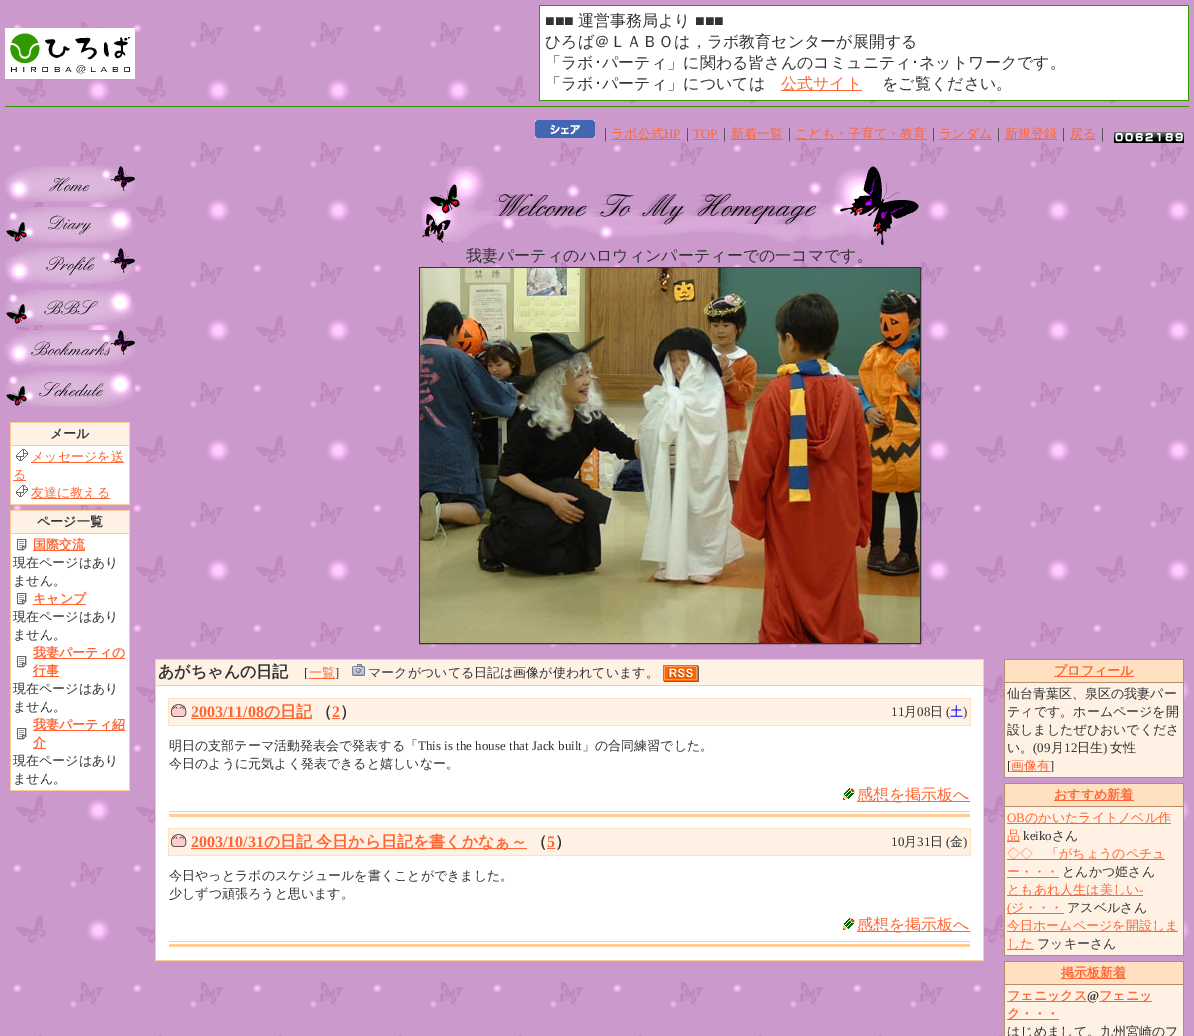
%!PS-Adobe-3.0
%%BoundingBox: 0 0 1194 1036
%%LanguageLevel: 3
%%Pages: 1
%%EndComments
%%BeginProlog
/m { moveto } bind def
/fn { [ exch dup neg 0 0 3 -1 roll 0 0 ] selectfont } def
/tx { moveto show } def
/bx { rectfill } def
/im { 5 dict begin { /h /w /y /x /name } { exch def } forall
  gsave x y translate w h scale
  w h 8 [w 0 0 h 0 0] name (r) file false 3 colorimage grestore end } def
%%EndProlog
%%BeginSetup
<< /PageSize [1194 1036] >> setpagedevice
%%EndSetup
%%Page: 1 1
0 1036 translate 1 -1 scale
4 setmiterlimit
1 setgray
0 0 1194 1036 bx
(image0.raw) 0 0 1194 1036 im
5 28 130 51 bx
(image1.raw) 10 33 120 41 im
0.2 0.6 0 setrgbcolor
539 5 650 96 bx
1 setgray
540 6 648 94 bx
/LiberationSerif-Regular 16 fn
0.2 setgray
(■■■) 545 26 tx
/WenQuanYiZenHei-Medium 16 fn
(運営事務局より) 578 26 tx
/LiberationSerif-Regular 16 fn
(■■■) 695 26 tx
/WenQuanYiZenHei-Medium 16 fn
(ひろば＠ＬＡＢＯは，ラボ教育センターが展開する) 545 47 tx
(「ラボ) 545 68 tx
/IPAPGothic-Regular 16 fn
(･) 594 68 tx
/WenQuanYiZenHei-Medium 16 fn
(パーティ」に関わる皆さんのコミュニティ) 602 68 tx
/IPAPGothic-Regular 16 fn
(･) 911 68 tx
/WenQuanYiZenHei-Medium 16 fn
(ネットワークです。) 919 68 tx
(「ラボ) 545 89 tx
/IPAPGothic-Regular 16 fn
(･) 594 89 tx
/WenQuanYiZenHei-Medium 16 fn
(パーティ」については) 602 89 tx
1 0.4 0.2 setrgbcolor
781 90 81 1 bx
(公式サイト) 781 89 tx
0.2 setgray
(をご覧ください。) 882 89 tx
0.2 0.6 0 setrgbcolor
5 106 1184 1 bx
(image2.raw) 535 120 60 18 im
/WenQuanYiZenHei-Medium 13 fn
0.2 setgray
(｜) 599 138 tx
1 0.4 0.2 setrgbcolor
611 139 70 1 bx
(ラボ公式) 611 138 tx
/LiberationSerif-Regular 13 fn
(HP) 664 138 tx
/WenQuanYiZenHei-Medium 13 fn
0.2 setgray
(｜) 681 138 tx
/LiberationSerif-Regular 13 fn
1 0.4 0.2 setrgbcolor
(TOP) 693 138 tx
693 139 25 1 bx
/WenQuanYiZenHei-Medium 13 fn
0.2 setgray
(｜) 718 138 tx
1 0.4 0.2 setrgbcolor
731 139 52 1 bx
(新着一覧) 731 138 tx
0.2 setgray
(｜) 783 138 tx
1 0.4 0.2 setrgbcolor
795 139 132 1 bx
(こども・子育て・教育) 795 138 tx
0.2 setgray
(｜) 927 138 tx
1 0.4 0.2 setrgbcolor
939 139 53 1 bx
(ランダム) 939 138 tx
0.2 setgray
(｜) 992 138 tx
1 0.4 0.2 setrgbcolor
1005 139 52 1 bx
(新規登録) 1005 138 tx
0.2 setgray
(｜) 1057 138 tx
1 0.4 0.2 setrgbcolor
1070 139 26 1 bx
(戻る) 1070 138 tx
0.2 setgray
(｜) 1096 138 tx
(image3.raw) 1114 131 10 12 im
(image3.raw) 1124 131 10 12 im
(image4.raw) 1134 131 10 12 im
(image5.raw) 1144 131 10 12 im
(image6.raw) 1154 131 10 12 im
(image7.raw) 1164 131 10 12 im
(image8.raw) 1174 131 10 12 im
(image9.raw) 5 166 130 36 im
(image10.raw) 5 207 130 36 im
(image11.raw) 5 248 130 36 im
(image12.raw) 5 289 130 36 im
(image13.raw) 5 330 130 36 im
(image14.raw) 5 371 130 36 im
1 0.8 0.6 setrgbcolor
10 422 120 83 bx
1 0.949 0.898 setrgbcolor
11 423 118 22 bx
/WenQuanYiZenHei-Bold 13 fn
0.2 setgray
(メール) 50 438 tx
1 setgray
11 446 118 58 bx
(image15.raw) 16 449 12 12 im
1 0.4 0.2 setrgbcolor
31 462 93 1 bx
/WenQuanYiZenHei-Medium 13 fn
(メッセージを送) 31 461 tx
13 480 13 1 bx
(る) 13 479 tx
(image15.raw) 16 485 12 12 im
31 498 79 1 bx
(友達に教える) 31 497 tx
1 0.8 0.6 setrgbcolor
10 510 120 281 bx
1 0.949 0.898 setrgbcolor
11 511 118 22 bx
/WenQuanYiZenHei-Bold 13 fn
0.2 setgray
(ページ一覧) 37 526 tx
1 setgray
11 534 118 256 bx
(image16.raw) 17 539 10 12 im
1 0.4 0.2 setrgbcolor
33 550 52 1 bx
(国際交流) 33 549 tx
/WenQuanYiZenHei-Medium 13 fn
0.2 setgray
(現在ページはあり) 13 567 tx
(ません。) 13 585 tx
(image16.raw) 17 593 10 12 im
1 0.4 0.2 setrgbcolor
33 604 53 1 bx
/WenQuanYiZenHei-Bold 13 fn
(キャンプ) 33 603 tx
/WenQuanYiZenHei-Medium 13 fn
0.2 setgray
(現在ページはあり) 13 621 tx
(ません。) 13 639 tx
(image16.raw) 17 656 10 12 im
1 0.4 0.2 setrgbcolor
33 658 92 1 bx
/WenQuanYiZenHei-Bold 13 fn
(我妻パーティの) 33 657 tx
33 676 26 1 bx
(行事) 33 675 tx
/WenQuanYiZenHei-Medium 13 fn
0.2 setgray
(現在ページはあり) 13 693 tx
(ません。) 13 711 tx
(image16.raw) 17 728 10 12 im
1 0.4 0.2 setrgbcolor
33 730 92 1 bx
/WenQuanYiZenHei-Bold 13 fn
(我妻パーティ紹) 33 729 tx
33 748 13 1 bx
(介) 33 747 tx
/WenQuanYiZenHei-Medium 13 fn
0.2 setgray
(現在ページはあり) 13 765 tx
(ません。) 13 783 tx
(image17.raw) 422 166 497 79 im
/WenQuanYiZenHei-Medium 16 fn
(我妻パーティのハロウィンパーティーでの一コマです。) 466 261 tx
419.5 267.5 501 376 rectstroke
(image18.raw) 420 268 500 375 im
1 0.8 0.6 setrgbcolor
155 659 829 302 bx
1 0.949 0.898 setrgbcolor
156 660 827 25 bx
/WenQuanYiZenHei-Bold 16 fn
0.2 setgray
(あがちゃんの日記) 158 677 tx
/LiberationSerif-Regular 13 fn
([) 304 677 tx
1 0.4 0.2 setrgbcolor
309 678 26 1 bx
/WenQuanYiZenHei-Medium 13 fn
(一覧) 309 677 tx
/LiberationSerif-Regular 13 fn
0.2 setgray
(]) 335 677 tx
(image19.raw) 352 664 13 12 im
/WenQuanYiZenHei-Medium 13 fn
(マークがついてる日記は画像が使われています。) 368 677 tx
(image20.raw) 663 665 36 17 im
1 setgray
156 686 827 274 bx
1 0.878 0.757 setrgbcolor
168 698 803 28 bx
1 0.949 0.898 setrgbcolor
169 699 801 26 bx
(image21.raw) 171 704 16 13 im
/LiberationSerif-Bold 16 fn
1 0.4 0.2 setrgbcolor
(2003/11/08) 191 717 tx
191 718 121 1 bx
/WenQuanYiZenHei-Bold 16 fn
(の日記) 264 717 tx
0.2 setgray
(（) 316 717 tx
1 0.4 0.2 setrgbcolor
332 718 8 1 bx
/LiberationSerif-Bold 16 fn
(2) 332 717 tx
/WenQuanYiZenHei-Bold 16 fn
0.2 setgray
(）) 340 717 tx
/LiberationSerif-Regular 13 fn
(11) 891 716 tx
/WenQuanYiZenHei-Medium 13 fn
(月) 904 716 tx
/LiberationSerif-Regular 13 fn
(08) 917 716 tx
/WenQuanYiZenHei-Medium 13 fn
(日) 930 716 tx
/LiberationSerif-Regular 13 fn
(\() 946 716 tx
/WenQuanYiZenHei-Medium 13 fn
0 0 1 setrgbcolor
(土) 950 716 tx
/LiberationSerif-Regular 13 fn
0.2 setgray
(\)) 963 716 tx
/WenQuanYiZenHei-Medium 13 fn
(明日の支部テーマ活動発表会で発表する「) 169 750 tx
/LiberationSerif-Regular 13 fn
(This is the house that Jack built) 418 750 tx
/WenQuanYiZenHei-Medium 13 fn
(」の合同練習でした。) 582 750 tx
(今日のように元気よく発表できると嬉しいなー。) 169 768 tx
(image22.raw) 843 788 12 12 im
1 0.4 0.2 setrgbcolor
857 801 113 1 bx
/WenQuanYiZenHei-Medium 16 fn
(感想を掲示板へ) 857 800 tx
1 0.8 0.6 setrgbcolor
169 811 801 1 bx
169 814 801 3 bx
1 0.878 0.757 setrgbcolor
168 828 803 28 bx
1 0.949 0.898 setrgbcolor
169 829 801 26 bx
(image21.raw) 171 834 16 13 im
/LiberationSerif-Bold 16 fn
1 0.4 0.2 setrgbcolor
(2003/10/31) 191 847 tx
191 848 336 1 bx
/WenQuanYiZenHei-Bold 16 fn
264 847 m -1 0 32 (の日記 今日から日記を書くかなぁ～) widthshow
0.2 setgray
(（) 531 847 tx
1 0.4 0.2 setrgbcolor
547 848 8 1 bx
/LiberationSerif-Bold 16 fn
(5) 547 847 tx
/WenQuanYiZenHei-Bold 16 fn
0.2 setgray
(）) 555 847 tx
/LiberationSerif-Regular 13 fn
(10) 891 846 tx
/WenQuanYiZenHei-Medium 13 fn
(月) 904 846 tx
/LiberationSerif-Regular 13 fn
(31) 917 846 tx
/WenQuanYiZenHei-Medium 13 fn
(日) 930 846 tx
/LiberationSerif-Regular 13 fn
(\() 946 846 tx
/WenQuanYiZenHei-Medium 13 fn
(金) 950 846 tx
/LiberationSerif-Regular 13 fn
(\)) 963 846 tx
/WenQuanYiZenHei-Medium 13 fn
(今日やっとラボのスケジュールを書くことができました。) 169 880 tx
(少しずつ頑張ろうと思います。) 169 898 tx
(image22.raw) 843 918 12 12 im
1 0.4 0.2 setrgbcolor
857 931 113 1 bx
/WenQuanYiZenHei-Medium 16 fn
(感想を掲示板へ) 857 930 tx
1 0.8 0.6 setrgbcolor
169 941 801 1 bx
169 944 801 3 bx
0.698 0.557 0.42 setrgbcolor
1004 659 180 119 bx
1 0.878 0.757 setrgbcolor
1005 660 178 22 bx
1 0.4 0.2 setrgbcolor
1054 676 80 1 bx
/WenQuanYiZenHei-Bold 13 fn
(プロフィール) 1054 675 tx
1 0.949 0.898 setrgbcolor
1005 683 178 94 bx
/WenQuanYiZenHei-Medium 13 fn
0.2 setgray
(仙台青葉区、泉区の我妻パー) 1007 698 tx
(ティです。ホームページを開) 1007 716 tx
(設しましたぜひおいでくださ) 1007 734 tx
(い。) 1007 752 tx
/LiberationSerif-Regular 13 fn
(\(09) 1033 752 tx
/WenQuanYiZenHei-Medium 13 fn
(月) 1051 752 tx
/LiberationSerif-Regular 13 fn
(12) 1064 752 tx
/WenQuanYiZenHei-Medium 13 fn
(日生) 1077 752 tx
/LiberationSerif-Regular 13 fn
(\)) 1103 752 tx
/WenQuanYiZenHei-Medium 13 fn
(女性) 1110 752 tx
/LiberationSerif-Regular 13 fn
([) 1007 770 tx
1 0.4 0.2 setrgbcolor
1011 771 39 1 bx
/WenQuanYiZenHei-Medium 13 fn
(画像有) 1011 770 tx
/LiberationSerif-Regular 13 fn
0.2 setgray
(]) 1050 770 tx
0.698 0.557 0.42 setrgbcolor
1004 783 180 173 bx
1 0.878 0.757 setrgbcolor
1005 784 178 22 bx
1 0.4 0.2 setrgbcolor
1054 800 80 1 bx
/WenQuanYiZenHei-Bold 13 fn
(おすすめ新着) 1054 799 tx
1 0.949 0.898 setrgbcolor
1005 807 178 148 bx
/LiberationSerif-Regular 13 fn
1 0.4 0.2 setrgbcolor
(OB) 1007 822 tx
1007 823 164 1 bx
/WenQuanYiZenHei-Medium 13 fn
(のかいたライトノベル作) 1025 822 tx
1007 841 13 1 bx
(品) 1007 840 tx
/LiberationSerif-Regular 13 fn
0.2 setgray
(keiko) 1023 840 tx
/WenQuanYiZenHei-Medium 13 fn
(さん) 1052 840 tx
1 0.4 0.2 setrgbcolor
1007 859 158 1 bx
(◇◇　「がちょうのペチュ) 1007 858 tx
(ー・・・) 1007 876 tx
1007 877 52 1 bx
0.2 setgray
(とんかつ姫さん) 1062 876 tx
1 0.4 0.2 setrgbcolor
1007 895 136 1 bx
(ともあれ人生は美しい) 1007 894 tx
/LiberationSerif-Regular 13 fn
(-) 1139 894 tx
1007 913 57 1 bx
(\() 1007 912 tx
/WenQuanYiZenHei-Medium 13 fn
(ジ・・・) 1011 912 tx
0.2 setgray
(アスベルさん) 1067 912 tx
1 0.4 0.2 setrgbcolor
1007 931 171 1 bx
(今日ホームページを開設しま) 1007 930 tx
1007 949 27 1 bx
(した) 1007 948 tx
0.2 setgray
(フッキーさん) 1037 948 tx
0.698 0.557 0.42 setrgbcolor
1004 961 180 75 bx
1 0.878 0.757 setrgbcolor
1005 962 178 22 bx
1 0.4 0.2 setrgbcolor
1061 978 65 1 bx
/WenQuanYiZenHei-Bold 13 fn
(掲示板新着) 1061 977 tx
1 0.949 0.898 setrgbcolor
1005 985 178 51 bx
1 0.4 0.2 setrgbcolor
1007 1001 80 1 bx
(フェニックス) 1007 1000 tx
/LiberationSerif-Bold 13 fn
0.2 setgray
(@) 1087 1000 tx
1 0.4 0.2 setrgbcolor
1099 1001 53 1 bx
/WenQuanYiZenHei-Bold 13 fn
(フェニッ) 1099 1000 tx
1007 1019 52 1 bx
(ク・・・) 1007 1018 tx
/WenQuanYiZenHei-Medium 13 fn
0.2 setgray
(はじめまして。九州宮崎のフ) 1007 1036 tx
showpage
%%EOF
